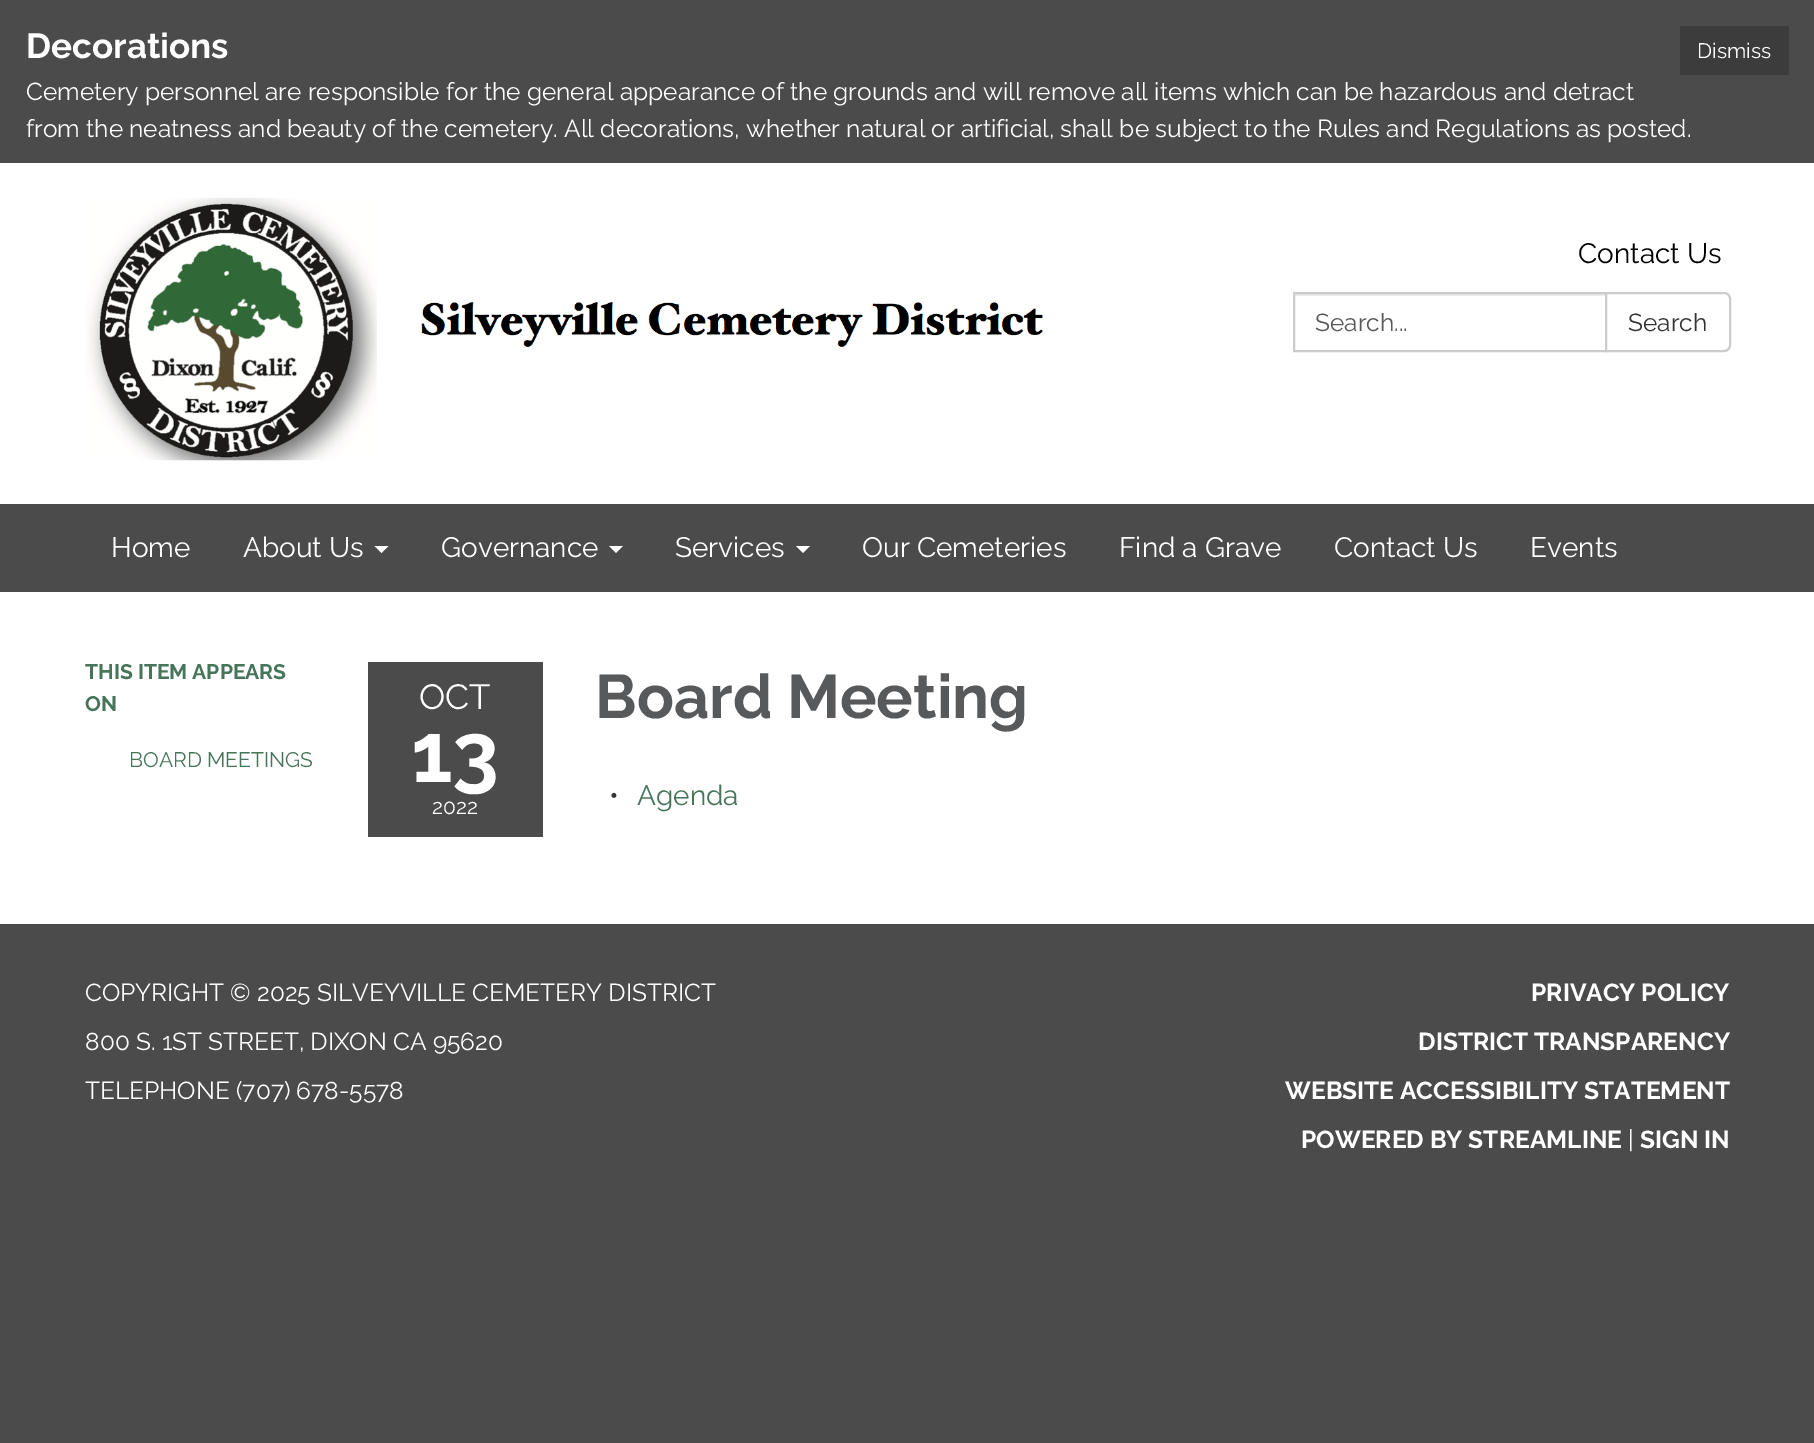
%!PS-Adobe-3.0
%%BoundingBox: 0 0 1814 1443
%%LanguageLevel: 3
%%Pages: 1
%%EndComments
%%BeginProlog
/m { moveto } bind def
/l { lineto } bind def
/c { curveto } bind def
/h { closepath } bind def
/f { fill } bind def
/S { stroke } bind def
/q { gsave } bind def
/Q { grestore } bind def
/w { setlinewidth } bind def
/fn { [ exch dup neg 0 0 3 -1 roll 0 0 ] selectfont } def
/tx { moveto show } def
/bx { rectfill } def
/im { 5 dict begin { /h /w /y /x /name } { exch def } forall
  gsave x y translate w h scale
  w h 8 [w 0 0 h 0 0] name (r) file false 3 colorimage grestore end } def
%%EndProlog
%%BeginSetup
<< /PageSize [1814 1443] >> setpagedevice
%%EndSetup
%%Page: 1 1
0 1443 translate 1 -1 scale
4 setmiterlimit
0.294 setgray
0 0 1814 1443 bx
/Raleway-Bold 35 fn
1 setgray
(Decorations) 26 58 tx
0.235 setgray
1680 26 109 49 bx
/Raleway-Regular 21 fn
1 setgray
(Dismiss) 1697 58 tx
/Raleway-Regular 24.5 fn
(Cemetery personnel are responsible for the general appearance of the grounds and will remove all items which can be hazardous and detract) 26 100 tx
(from the neatness and beauty of the cemetery. All decorations, whether natural or artificial, shall be subject to the Rules and Regulations as posted.) 26 137 tx
0 163 1814 341 bx
(image0.raw) 86 197 957 264 im
/Raleway-Regular 28 fn
0 setgray
(Contact Us) 1578 263 tx
0.925 setgray
1295 294 310 2 bx
0.8 setgray
2 w
1294 293 312 58 rectstroke
/Raleway-Regular 24.5 fn
0.345 0.349 0.357 setrgbcolor
(Search...) 1315 331 tx
1 setgray
1606 293 m 1724 293 l 1727.5 293 1730 295.5 1730 299 c 1730 345 l 1730 348.5 1727.5 351 1724 351 c 1606 351 l h q f Q
0.8 setgray
S
0.2 setgray
(Search) 1628 331 tx
/Raleway-Regular 28 fn
1 setgray
(Home) 111 557 tx
(About Us) 243 557 tx
374.5 546 m 388.5 546 l 381.5 553 l h f
(Governance) 441 557 tx
609 546 m 623 546 l 616 553 l h f
(Services) 675 557 tx
796 546 m 810 546 l 803 553 l h f
(Our Cemeteries) 862 557 tx
(Find a Grave) 1119 557 tx
(Contact Us) 1334 557 tx
(Events) 1530 557 tx
0 592 1814 332 bx
/Raleway-Bold 21 fn
0.275 0.459 0.353 setrgbcolor
(THIS ITEM APPEARS) 85 679 tx
(ON) 85 711 tx
/Raleway-Regular 21 fn
(BOARD MEETINGS) 129 767 tx
0.294 setgray
368 662 175 175 bx
/Raleway-Regular 35 fn
1 setgray
(OCT) 419 709 tx
/Raleway-Bold 84 fn
(13) 411 782 tx
/Raleway-Regular 21 fn
(2022) 432 814 tx
/Raleway-Bold 61.25 fn
0.345 0.349 0.357 setrgbcolor
(Board Meeting) 595 718 tx
/Raleway-Regular 28 fn
0.2 setgray
(•) 609 805 tx
0.275 0.459 0.353 setrgbcolor
(Agenda) 637 805 tx
/Raleway-Regular 24.5 fn
1 setgray
(COPYRIGHT © 2025 SILVEYVILLE CEMETERY DISTRICT) 85 1001 tx
(800 S. 1ST STREET, DIXON CA 95620) 85 1050 tx
(TELEPHONE \(707\) 678-5578) 85 1099 tx
/Raleway-Bold 24.5 fn
(PRIVACY POLICY) 1531 1001 tx
(DISTRICT TRANSPARENCY) 1418 1050 tx
(WEBSITE ACCESSIBILITY STATEMENT) 1285 1099 tx
(POWERED BY STREAMLINE) 1301 1148 tx
/Raleway-Regular 24.5 fn
(|) 1628 1148 tx
/Raleway-Bold 24.5 fn
(SIGN IN) 1640 1148 tx
showpage
%%EOF
